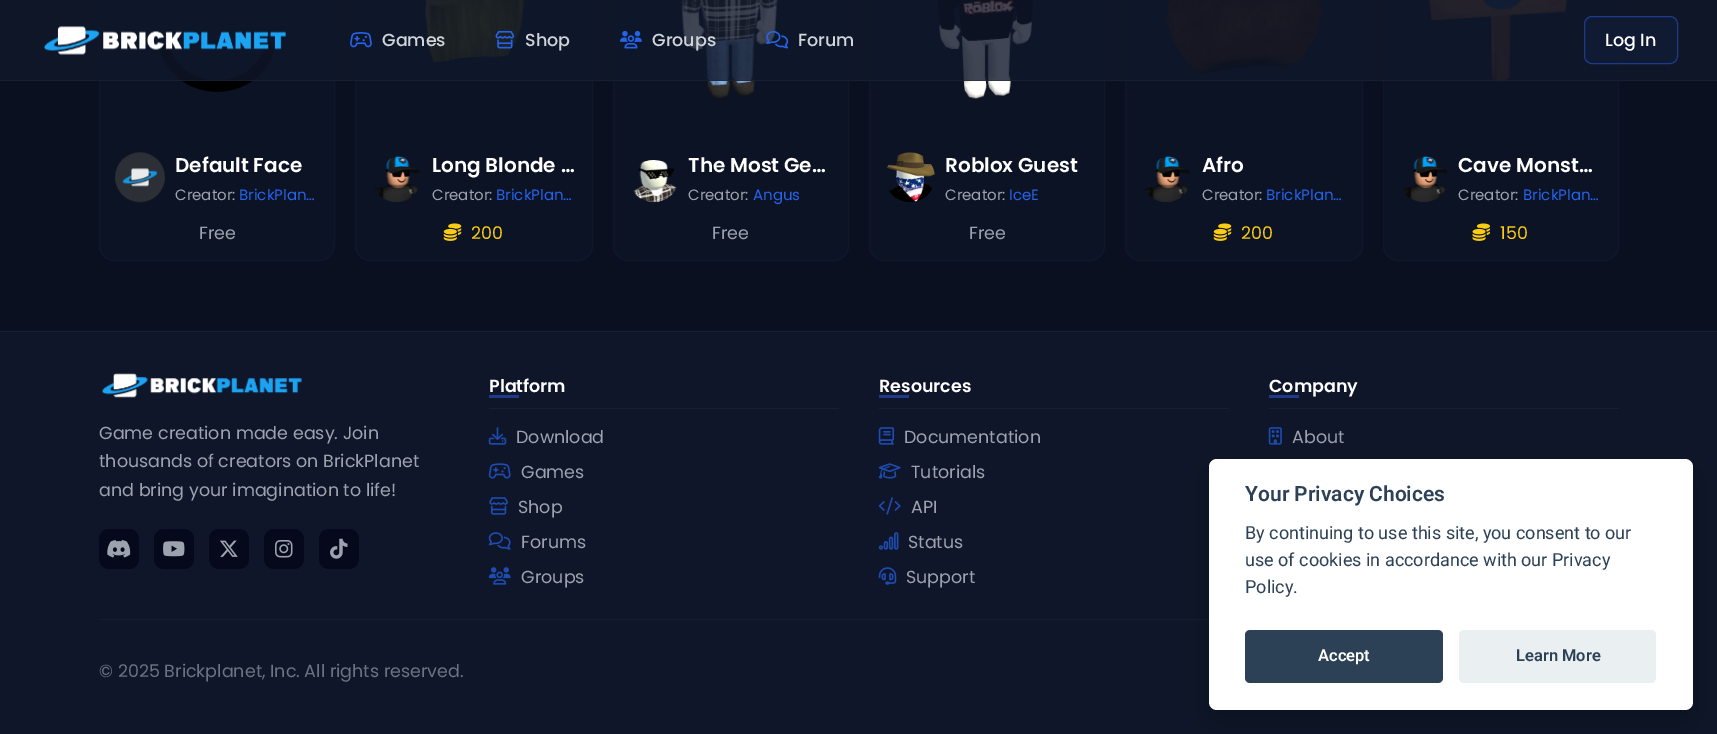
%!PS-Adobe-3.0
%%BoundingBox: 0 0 1717 734
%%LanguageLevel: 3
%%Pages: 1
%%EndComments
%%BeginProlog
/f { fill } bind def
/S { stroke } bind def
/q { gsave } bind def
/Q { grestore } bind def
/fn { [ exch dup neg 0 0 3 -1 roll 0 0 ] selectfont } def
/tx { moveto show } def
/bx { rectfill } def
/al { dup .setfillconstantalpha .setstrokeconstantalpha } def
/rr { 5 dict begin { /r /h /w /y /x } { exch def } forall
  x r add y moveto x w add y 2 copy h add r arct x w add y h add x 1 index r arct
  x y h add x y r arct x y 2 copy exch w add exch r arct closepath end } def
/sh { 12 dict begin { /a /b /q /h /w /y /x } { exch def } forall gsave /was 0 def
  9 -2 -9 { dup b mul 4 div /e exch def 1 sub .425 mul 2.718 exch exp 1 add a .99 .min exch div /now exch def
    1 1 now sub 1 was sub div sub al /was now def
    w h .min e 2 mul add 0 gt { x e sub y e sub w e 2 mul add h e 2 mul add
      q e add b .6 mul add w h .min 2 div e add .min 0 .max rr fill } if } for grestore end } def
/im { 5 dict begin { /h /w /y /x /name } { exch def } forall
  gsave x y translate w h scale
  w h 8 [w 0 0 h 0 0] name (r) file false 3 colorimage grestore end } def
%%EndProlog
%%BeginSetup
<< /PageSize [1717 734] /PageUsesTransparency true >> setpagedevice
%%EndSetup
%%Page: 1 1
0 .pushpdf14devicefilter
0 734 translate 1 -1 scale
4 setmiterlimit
0.039 0.063 0.125 setrgbcolor
0 0 1717 734 bx
0.047 0.075 0.141 setrgbcolor
99.5 -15.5 235 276 14.5 rr q f Q
0.055 0.09 0.18 setrgbcolor
S
(image5.raw) 159 43 116 49 im
0.047 0.075 0.141 setrgbcolor
355.5 -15.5 237 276 14.5 rr q f Q
0.055 0.09 0.18 setrgbcolor
S
(image7.raw) 425 0 100 62 im
0.047 0.075 0.141 setrgbcolor
613.5 -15.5 235 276 14.5 rr q f Q
0.055 0.09 0.18 setrgbcolor
S
(image10.raw) 681 0 97 99 im
0.047 0.075 0.141 setrgbcolor
869.5 -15.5 235 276 14.5 rr q f Q
0.055 0.09 0.18 setrgbcolor
S
(image12.raw) 937 0 97 99 im
0.047 0.075 0.141 setrgbcolor
1125.5 -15.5 237 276 14.5 rr q f Q
0.055 0.09 0.18 setrgbcolor
S
(image14.raw) 1166 0 157 75 im
0.047 0.075 0.141 setrgbcolor
1383.5 -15.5 235 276 14.5 rr q f Q
0.055 0.09 0.18 setrgbcolor
S
(image15.raw) 1428 0 139 81 im
0.8 al
0.059 0.09 0.165 setrgbcolor
0 0 1717 81 bx
0.5 al
0.122 0.161 0.216 setrgbcolor
0 80 1717 1 bx
1 al
(image0.raw) 44 26 242 29 im
(image1.raw) 350 32 22 16 im
/Poppins-Medium 17.5 fn
0.82 0.835 0.859 setrgbcolor
(Games) 382 46 tx
(image2.raw) 495 30 20 19 im
(Shop) 525 46 tx
(image3.raw) 620 30 22 19 im
(Groups) 652 46 tx
(image4.raw) 766 30 23 19 im
(Forum) 798 46 tx
0.1 al
0.118 0.227 0.541 setrgbcolor
1584.5 16.5 93 47 7.5 rr f
1 al
1584.5 16.5 93 47 7.5 rr S
1 setgray
(Log In) 1605 46 tx
(image6.raw) 115 152 50 51 im
/Poppins-SemiBold 20 fn
(Default Face) 175 172 tx
/Poppins-Regular 15 fn
0.612 0.639 0.686 setrgbcolor
(Creator:) 175 200 tx
0.145 0.388 0.922 setrgbcolor
(BrickPlan…) 239 200 tx
/Poppins-Regular 17.5 fn
0.612 0.639 0.686 setrgbcolor
(Free) 199 239 tx
(image8.raw) 374 156 46 46 im
/Poppins-SemiBold 20 fn
1 setgray
(Long Blonde …) 432 172 tx
/Poppins-Regular 15 fn
0.612 0.639 0.686 setrgbcolor
(Creator:) 432 200 tx
0.145 0.388 0.922 setrgbcolor
(BrickPlan…) 496 200 tx
(image9.raw) 443 223 19 18 im
/Poppins-Regular 17.5 fn
0.98 0.8 0.082 setrgbcolor
(200) 471 239 tx
(image11.raw) 633 160 44 43 im
/Poppins-SemiBold 20 fn
1 setgray
(The Most Ge…) 688 172 tx
/Poppins-Regular 15 fn
0.612 0.639 0.686 setrgbcolor
(Creator:) 688 200 tx
0.145 0.388 0.922 setrgbcolor
(Angus) 753 200 tx
/Poppins-Regular 17.5 fn
0.612 0.639 0.686 setrgbcolor
(Free) 712 239 tx
(image13.raw) 887 152 48 50 im
/Poppins-SemiBold 20 fn
1 setgray
(Roblox Guest) 945 172 tx
/Poppins-Regular 15 fn
0.612 0.639 0.686 setrgbcolor
(Creator:) 945 200 tx
0.145 0.388 0.922 setrgbcolor
(IceE) 1009 200 tx
/Poppins-Regular 17.5 fn
0.612 0.639 0.686 setrgbcolor
(Free) 969 239 tx
(image8.raw) 1144 156 46 46 im
/Poppins-SemiBold 20 fn
1 setgray
(Afro) 1202 172 tx
/Poppins-Regular 15 fn
0.612 0.639 0.686 setrgbcolor
(Creator:) 1202 200 tx
0.145 0.388 0.922 setrgbcolor
(BrickPlan…) 1266 200 tx
(image9.raw) 1213 223 19 18 im
/Poppins-Regular 17.5 fn
0.98 0.8 0.082 setrgbcolor
(200) 1241 239 tx
(image16.raw) 1402 156 46 46 im
/Poppins-SemiBold 20 fn
1 setgray
(Cave Monst…) 1458 172 tx
/Poppins-Regular 15 fn
0.612 0.639 0.686 setrgbcolor
(Creator:) 1458 200 tx
0.145 0.388 0.922 setrgbcolor
(BrickPlan…) 1523 200 tx
(image17.raw) 1472 223 18 18 im
/Poppins-Regular 17.5 fn
0.98 0.8 0.082 setrgbcolor
(150) 1500 239 tx
0.059 0.086 0.161 setrgbcolor
0 332 1717 402 bx
0.09 0.125 0.188 setrgbcolor
0 331 1717 1 bx
489 408 350 1 bx
/Poppins-SemiBold 17.5 fn
1 setgray
(Platform) 489 392 tx
0.118 0.227 0.541 setrgbcolor
489 395 30 3 bx
(image18.raw) 488 427 19 18 im
/Poppins-Regular 17.5 fn
0.612 0.639 0.686 setrgbcolor
(Download) 516 443 tx
(image19.raw) 488 463 23 16 im
(Games) 521 478 tx
(image20.raw) 489 497 19 18 im
(Shop) 518 513 tx
(image21.raw) 488 532 23 18 im
(Forums) 521 548 tx
(image22.raw) 488 567 23 18 im
(Groups) 521 583 tx
0.09 0.125 0.188 setrgbcolor
879 408 350 1 bx
/Poppins-SemiBold 17.5 fn
1 setgray
(Resources) 879 392 tx
0.118 0.227 0.541 setrgbcolor
879 395 30 3 bx
(image23.raw) 878 427 17 18 im
/Poppins-Regular 17.5 fn
0.612 0.639 0.686 setrgbcolor
(Documentation) 904 443 tx
(image24.raw) 878 463 23 16 im
(Tutorials) 911 478 tx
(image25.raw) 878 497 23 18 im
(API) 911 513 tx
(image26.raw) 878 532 21 18 im
(Status) 908 548 tx
(image27.raw) 878 567 19 18 im
(Support) 906 583 tx
0.09 0.125 0.188 setrgbcolor
1269 408 350 1 bx
/Poppins-SemiBold 17.5 fn
1 setgray
(Company) 1269 392 tx
0.118 0.227 0.541 setrgbcolor
1269 395 30 3 bx
(image28.raw) 1268 427 14 18 im
/Poppins-Regular 17.5 fn
0.612 0.639 0.686 setrgbcolor
(About) 1292 443 tx
(image29.raw) 101 373 201 25 im
(Game creation made easy. Join) 99 439 tx
(thousands of creators on BrickPlanet) 99 467 tx
(and bring your imagination to life!) 99 496 tx
0.02 0.035 0.106 setrgbcolor
99 529 40 40 10 rr f
(image30.raw) 107 540 24 18 im
154 529 40 40 10 rr f
(image31.raw) 163 541 22 16 im
209 529 40 40 10 rr f
(image32.raw) 219 540 19 17 im
264 529 40 40 10 rr f
(image33.raw) 275 540 18 18 im
319 529 40 40 10 rr f
(image34.raw) 330 538 18 21 im
0.082 0.118 0.184 setrgbcolor
99 619 1110 1 bx
0.42 0.447 0.502 setrgbcolor
(© 2025 Brickplanet, Inc. All rights reserved.) 99 677 tx
0.008 0.008 0.012 setrgbcolor
1209 471 484 252 8 19 0.28 sh
1 setgray
1209 459 484 251 8 rr f
/Roboto-SemiBold 21 fn
0.176 0.255 0.337 setrgbcolor
(Your Privacy Choices) 1245 501 tx
/Roboto-Regular 18 fn
(By continuing to use this site, you consent to our) 1245 539 tx
(use of cookies in accordance with our Privacy) 1245 566 tx
(Policy.) 1245 593 tx
1245 630 198 53 5 rr f
/Roboto-SemiBold 16.5 fn
1 setgray
(Accept) 1318 661 tx
0.918 0.937 0.949 setrgbcolor
1459 630 197 53 5 rr f
0.176 0.255 0.337 setrgbcolor
(Learn More) 1516 661 tx
.poppdf14devicefilter showpage
%%EOF
